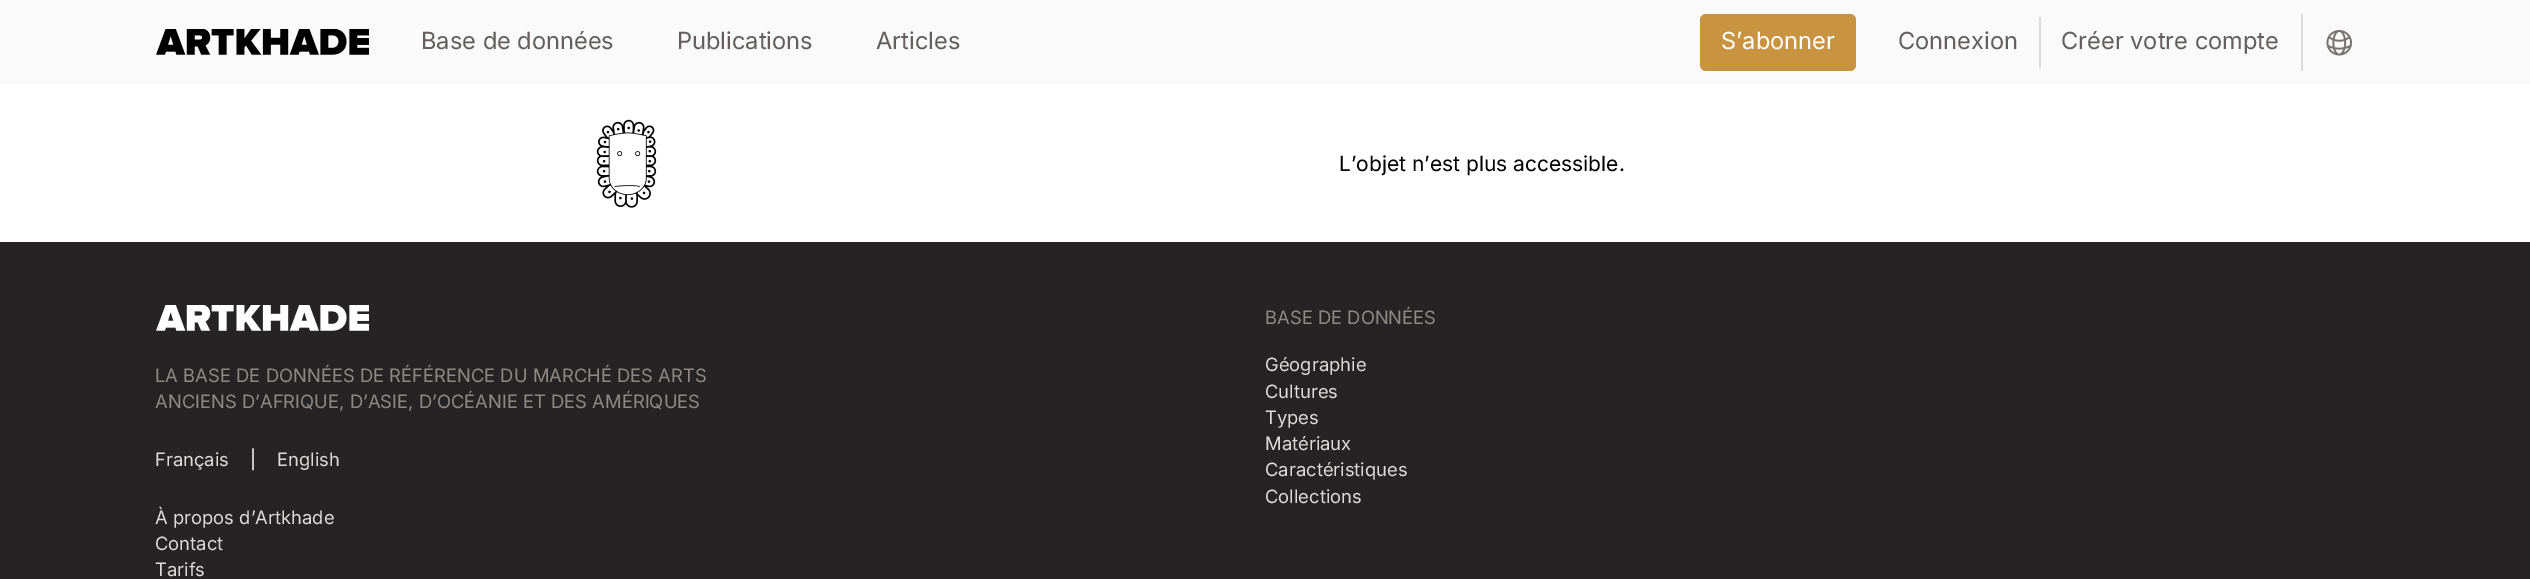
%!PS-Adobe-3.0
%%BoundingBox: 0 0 2530 579
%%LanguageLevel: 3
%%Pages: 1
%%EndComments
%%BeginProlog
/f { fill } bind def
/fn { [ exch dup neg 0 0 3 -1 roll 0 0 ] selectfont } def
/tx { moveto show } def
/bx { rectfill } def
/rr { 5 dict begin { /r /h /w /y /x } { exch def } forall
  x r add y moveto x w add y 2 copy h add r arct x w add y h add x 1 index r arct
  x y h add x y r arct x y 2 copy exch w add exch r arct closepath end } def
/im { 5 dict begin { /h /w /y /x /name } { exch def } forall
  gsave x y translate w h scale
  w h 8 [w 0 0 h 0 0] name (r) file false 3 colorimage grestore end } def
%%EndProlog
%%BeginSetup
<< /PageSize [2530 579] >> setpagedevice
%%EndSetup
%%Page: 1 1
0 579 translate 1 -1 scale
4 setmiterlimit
1 setgray
0 0 2530 579 bx
0.98 setgray
0 0 2530 84 bx
(image0.raw) 156 29 213 26 im
/Inter-Regular 23.6 fn
0.392 0.373 0.369 setrgbcolor
(Base de données) 421 49 tx
(Publications) 677 49 tx
(Articles) 876 49 tx
0.784 0.58 0.255 setrgbcolor
1700 14 156 57 6 rr f
1 setgray
(S’abonner) 1721 49 tx
0.392 0.373 0.369 setrgbcolor
(Connexion) 1898 49 tx
0.863 0.859 0.855 setrgbcolor
2039 17 2 51 bx
0.392 0.373 0.369 setrgbcolor
(Créer votre compte) 2061 49 tx
0.863 0.859 0.855 setrgbcolor
2301 14 2 57 bx
(image1.raw) 2326 29 27 27 im
(image2.raw) 596 119 61 89 im
/Inter-Regular 21 fn
0 setgray
(L’objet n’est plus accessible.) 1339 171 tx
0.145 0.137 0.137 setrgbcolor
0 242 2530 337 bx
(image3.raw) 156 305 213 26 im
/Inter-Regular 18.4 fn
0.553 0.533 0.525 setrgbcolor
(LA BASE DE DONNÉES DE RÉFÉRENCE DU MARCHÉ DES ARTS) 155 382 tx
(ANCIENS D’AFRIQUE, D’ASIE, D’OCÉANIE ET DES AMÉRIQUES) 155 408 tx
0.863 0.859 0.855 setrgbcolor
(Français) 155 466 tx
1 setgray
(|) 250 466 tx
0.863 0.859 0.855 setrgbcolor
(English) 277 466 tx
(À propos d’Artkhade) 155 524 tx
(Contact) 155 550 tx
(Tarifs) 155 576 tx
0.553 0.533 0.525 setrgbcolor
(BASE DE DONNÉES) 1265 324 tx
0.863 0.859 0.855 setrgbcolor
(Géographie) 1265 371 tx
(Cultures) 1265 398 tx
(Types) 1265 424 tx
(Matériaux) 1265 450 tx
(Caractéristiques) 1265 476 tx
(Collections) 1265 503 tx
showpage
%%EOF
